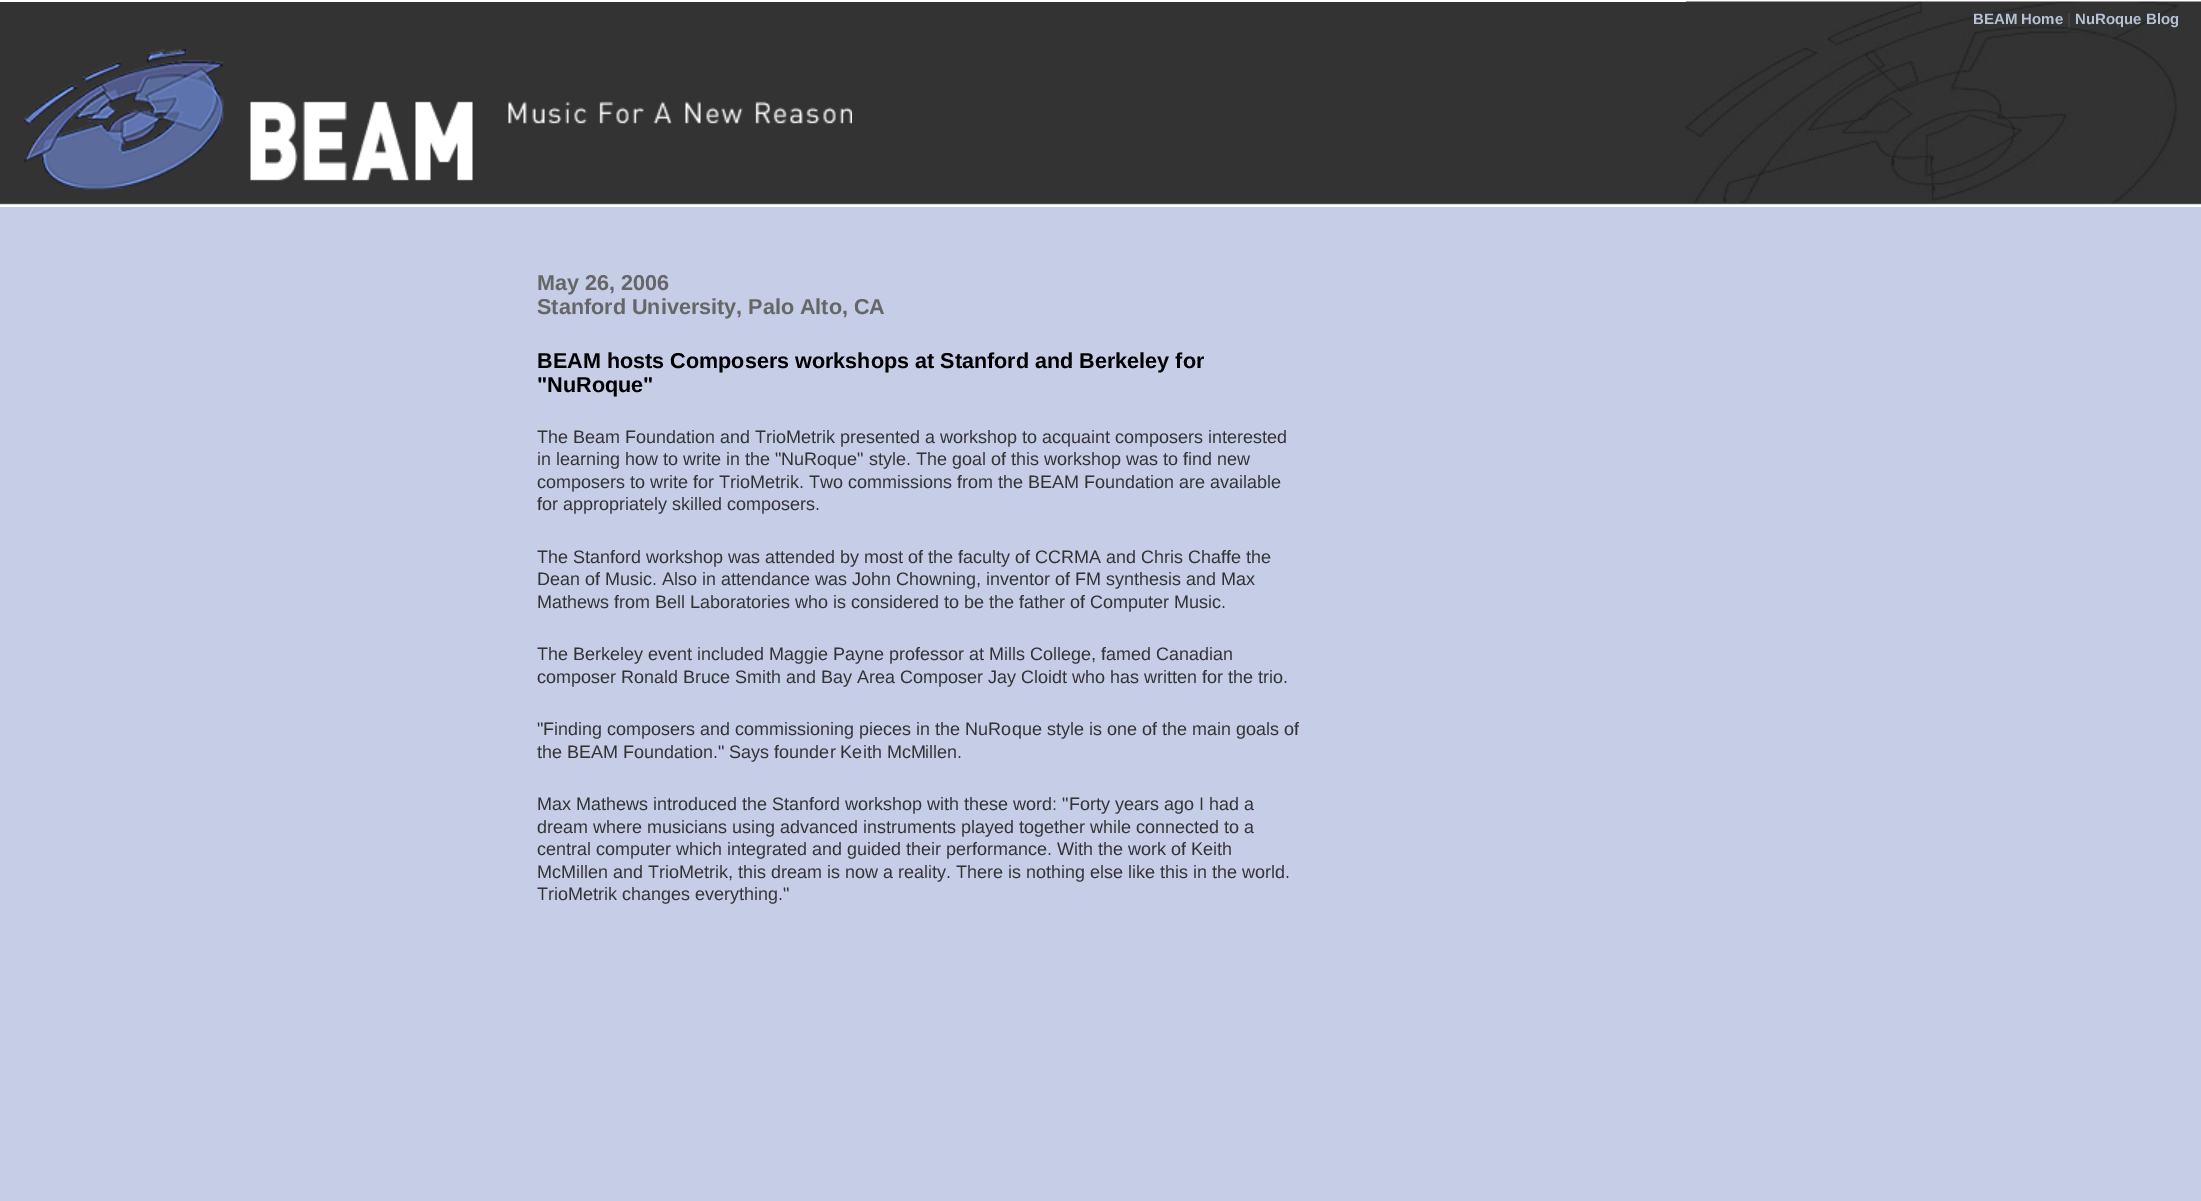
%!PS-Adobe-3.0
%%BoundingBox: 0 0 2201 1201
%%LanguageLevel: 3
%%Pages: 1
%%EndComments
%%BeginProlog
/fn { [ exch dup neg 0 0 3 -1 roll 0 0 ] selectfont } def
/tx { moveto show } def
/bx { rectfill } def
/im { 5 dict begin { /h /w /y /x /name } { exch def } forall
  gsave x y translate w h scale
  w h 8 [w 0 0 h 0 0] name (r) file false 3 colorimage grestore end } def
%%EndProlog
%%BeginSetup
<< /PageSize [2201 1201] >> setpagedevice
%%EndSetup
%%Page: 1 1
0 1201 translate 1 -1 scale
4 setmiterlimit
0.776 0.804 0.906 setrgbcolor
0 0 2201 1201 bx
(image0.raw) 0 2 2201 205 im
1 setgray
0 0 2201 2 bx
(image1.raw) 1686 1 515 202 im
/LiberationSans-Bold 15 fn
0.714 0.757 0.827 setrgbcolor
(BEAM Home) 1973 24 tx
0.267 setgray
(|) 2067 24 tx
0.714 0.757 0.827 setrgbcolor
(NuRoque Blog) 2075 24 tx
(image2.raw) 24 49 828 141 im
/LiberationSans-Bold 21.6 fn
0.4 setgray
(May 26, 2006) 537 290 tx
(Stanford University, Palo Alto, CA) 537 314 tx
0 setgray
(BEAM hosts Composers workshops at Stanford and Berkeley for) 537 368 tx
("NuRoque") 537 392 tx
/LiberationSans-Regular 18 fn
0.2 setgray
(The Beam Foundation and TrioMetrik presented a workshop to acquaint composers interested) 537 443 tx
(in learning how to write in the "NuRoque" style. The goal of this workshop was to find new) 537 465 tx
(composers to write for TrioMetrik. Two commissions from the BEAM Foundation are available) 537 488 tx
(for appropriately skilled composers.) 537 510 tx
(The Stanford workshop was attended by most of the faculty of CCRMA and Chris Chaffe the) 537 563 tx
(Dean of Music. Also in attendance was John Chowning, inventor of FM synthesis and Max) 537 585 tx
(Mathews from Bell Laboratories who is considered to be the father of Computer Music.) 537 608 tx
(The Berkeley event included Maggie Payne professor at Mills College, famed Canadian) 537 660 tx
(composer Ronald Bruce Smith and Bay Area Composer Jay Cloidt who has written for the trio.) 537 683 tx
("Finding composers and commissioning pieces in the NuRoque style is one of the main goals of) 537 735 tx
(the BEAM Foundation." Says founder Keith McMillen.) 537 758 tx
(Max Mathews introduced the Stanford workshop with these word: "Forty years ago I had a) 537 810 tx
(dream where musicians using advanced instruments played together while connected to a) 537 833 tx
(central computer which integrated and guided their performance. With the work of Keith) 537 855 tx
(McMillen and TrioMetrik, this dream is now a reality. There is nothing else like this in the world.) 537 878 tx
(TrioMetrik changes everything.") 537 900 tx
showpage
%%EOF
